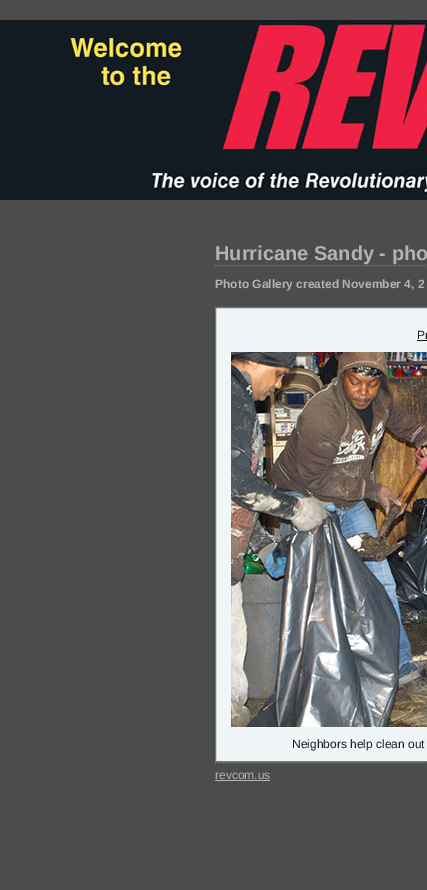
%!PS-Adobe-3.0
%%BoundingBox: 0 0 427 890
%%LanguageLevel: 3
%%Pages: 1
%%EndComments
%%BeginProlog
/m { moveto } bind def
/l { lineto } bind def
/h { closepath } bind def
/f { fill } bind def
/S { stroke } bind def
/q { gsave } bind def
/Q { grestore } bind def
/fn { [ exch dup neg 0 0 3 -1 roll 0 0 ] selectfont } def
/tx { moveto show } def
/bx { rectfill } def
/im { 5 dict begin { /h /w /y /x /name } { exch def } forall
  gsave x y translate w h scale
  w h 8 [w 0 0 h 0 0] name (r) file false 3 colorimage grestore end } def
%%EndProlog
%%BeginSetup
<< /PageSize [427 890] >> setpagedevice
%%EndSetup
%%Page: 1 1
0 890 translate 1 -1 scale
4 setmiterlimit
0.298 setgray
0 0 427 890 bx
(image0.raw) 0 20 427 180 im
0.498 setgray
[1 1] 0 setdash
215 265.5 m 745 265.5 l S
/LiberationSans-Bold 20 fn
0.702 setgray
(Hurricane Sandy - pho) 215 260 tx
/LiberationSans-Bold 12 fn
(Photo Gallery created November 4, 2) 215 288 tx
0.941 0.961 0.973 setrgbcolor
215.5 307.5 m 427.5 307.5 l 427.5 761.5 l 215.5 761.5 l h q f Q
0.471 setgray
[] 0 setdash
S
/LiberationSans-Regular 12 fn
0.11 0.11 0.106 setrgbcolor
(Pr) 417 339 tx
417 340 10 1 bx
(image1.raw) 231 352 196 375 im
(Neighbors help clean out) 292 748 tx
0.498 setgray
[1 1] 0 setdash
215 762.5 m 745 762.5 l S
0.702 setgray
(revcom.us) 215 779 tx
215 780 55 1 bx
showpage
%%EOF
